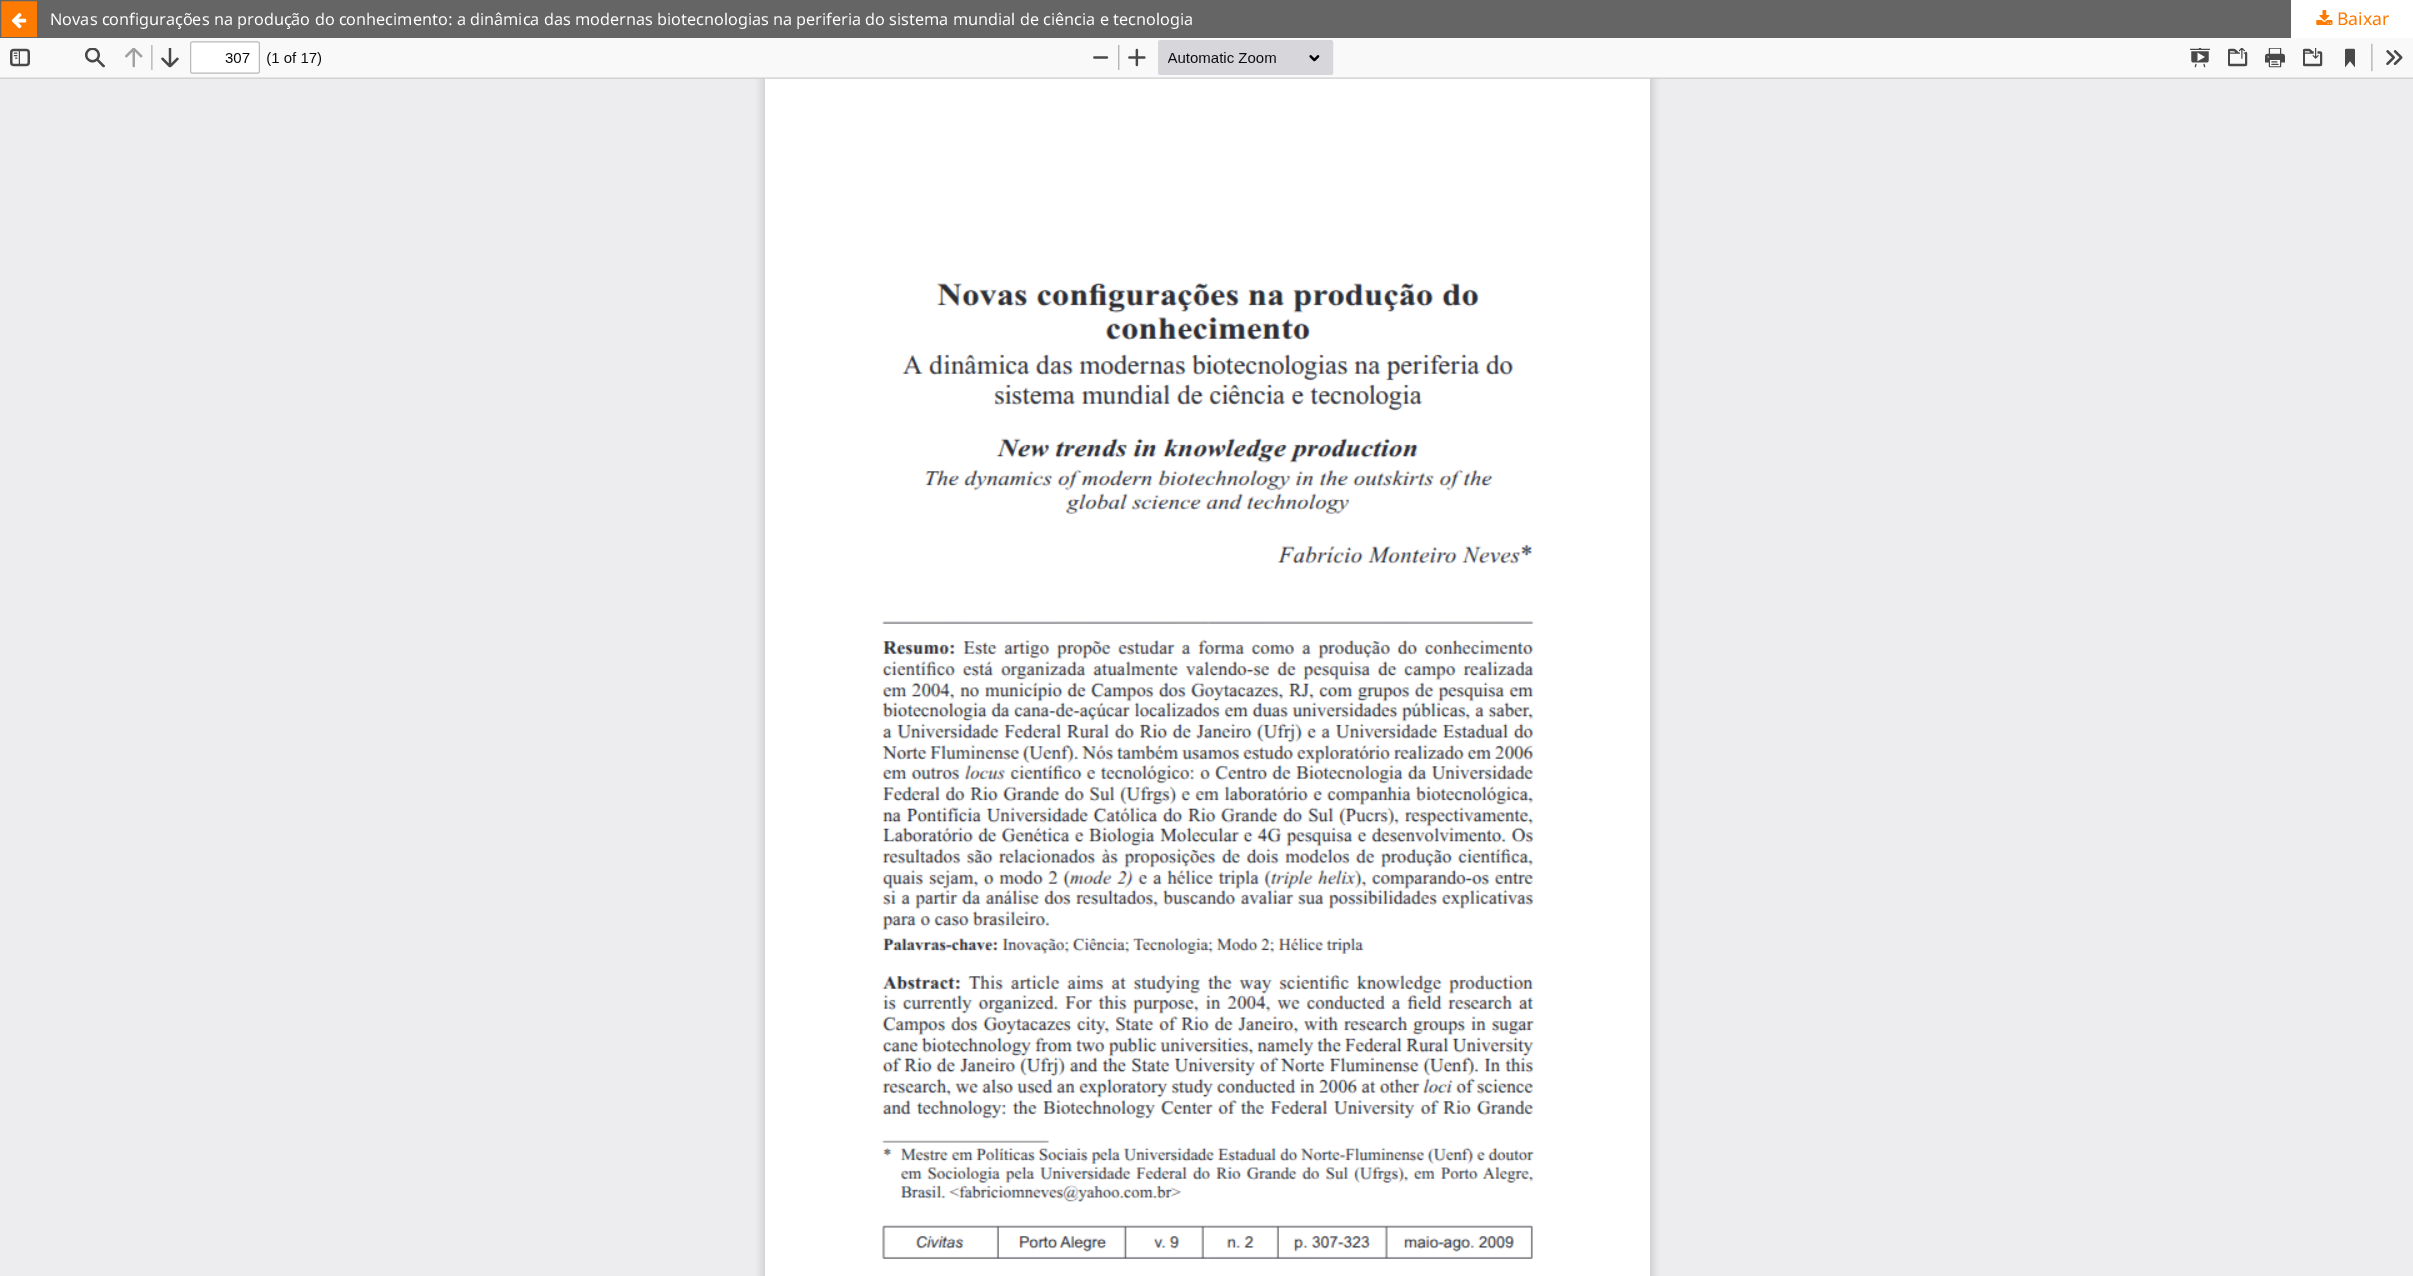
%!PS-Adobe-3.0
%%BoundingBox: 0 0 2413 1276
%%LanguageLevel: 3
%%Pages: 1
%%EndComments
%%BeginProlog
/m { moveto } bind def
/l { lineto } bind def
/h { closepath } bind def
/f { fill } bind def
/S { stroke } bind def
/q { gsave } bind def
/Q { grestore } bind def
/fn { [ exch dup neg 0 0 3 -1 roll 0 0 ] selectfont } def
/tx { moveto show } def
/bx { rectfill } def
/im { 5 dict begin { /h /w /y /x /name } { exch def } forall
  gsave x y translate w h scale
  w h 8 [w 0 0 h 0 0] name (r) file false 3 colorimage grestore end } def
%%EndProlog
%%BeginSetup
<< /PageSize [2413 1276] >> setpagedevice
%%EndSetup
%%Page: 1 1
0 1276 translate 1 -1 scale
4 setmiterlimit
1 setgray
0 0 2413 1276 bx
0.396 setgray
38 0 2253 38 bx
1 0.478 0 setrgbcolor
0.5 0.5 m 37.5 0.5 l 37.5 37.5 l 0.5 37.5 l h q f Q
0.396 setgray
S
(image0.raw) 11 13 16 16 im
/NotoSans-Regular 16.25 fn
1 setgray
(Novas configurações na produção do conhecimento: a dinâmica das modernas biotecnologias na periferia do sistema mundial de ciência e tecnologia) 50 25 tx
(image1.raw) 2316 10 17 15 im
/NotoSans-Regular 17.5 fn
1 0.478 0 setrgbcolor
(Baixar) 2337 25 tx
(image2.raw) 0 38 2413 1238 im
showpage
%%EOF
